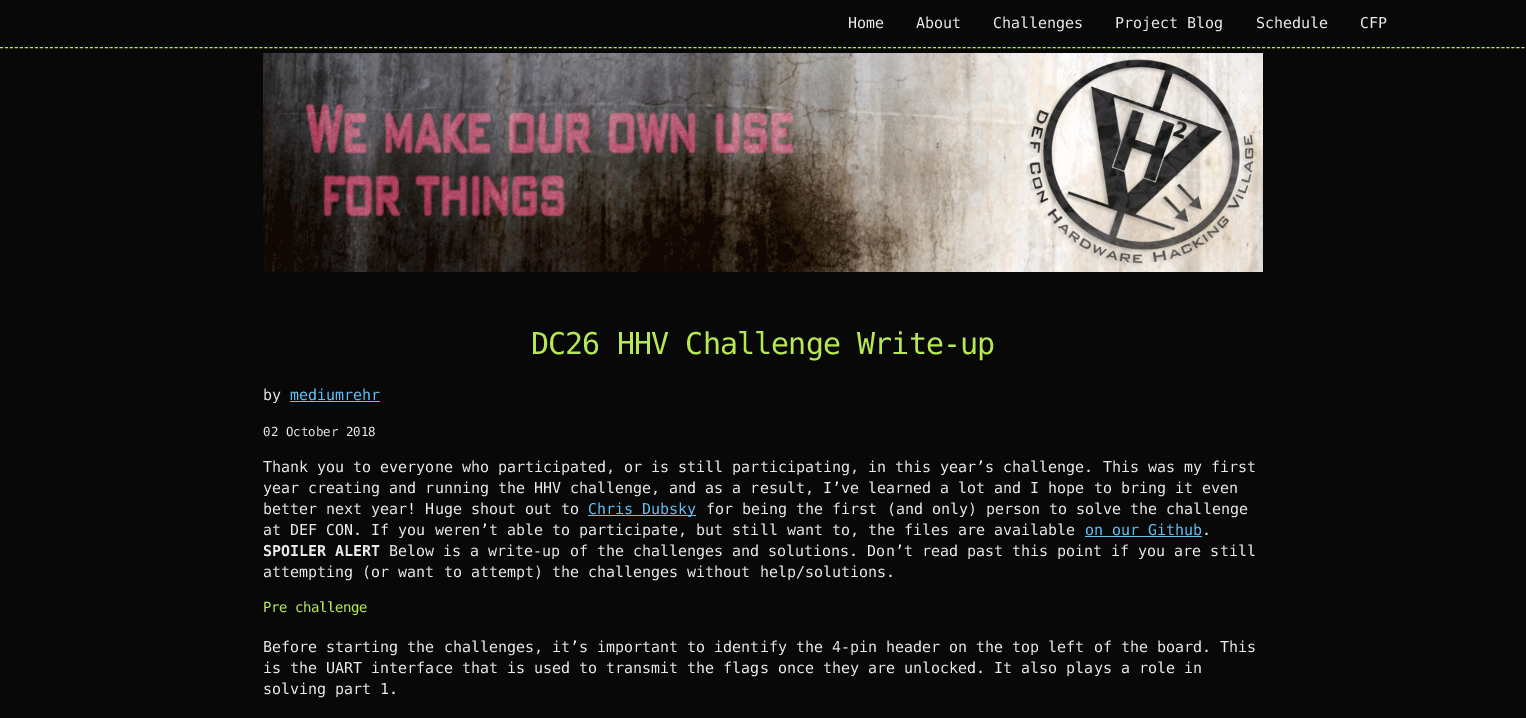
%!PS-Adobe-3.0
%%BoundingBox: 0 0 1526 718
%%LanguageLevel: 3
%%Pages: 1
%%EndComments
%%BeginProlog
/m { moveto } bind def
/l { lineto } bind def
/S { stroke } bind def
/fn { [ exch dup neg 0 0 3 -1 roll 0 0 ] selectfont } def
/tx { moveto show } def
/bx { rectfill } def
/im { 5 dict begin { /h /w /y /x /name } { exch def } forall
  gsave x y translate w h scale
  w h 8 [w 0 0 h 0 0] name (r) file false 3 colorimage grestore end } def
%%EndProlog
%%BeginSetup
<< /PageSize [1526 718] >> setpagedevice
%%EndSetup
%%Page: 1 1
0 718 translate 1 -1 scale
4 setmiterlimit
0.031 setgray
0 0 1526 718 bx
0.71 0.91 0.325 setrgbcolor
[3 1.99] 0 setdash
0 47.5 m 1526 47.5 l S
/DejaVuSansMono-Regular 15 fn
0.918 setgray
(Home) 848 28 tx
(About) 916 28 tx
(Challenges) 993 28 tx
(Project Blog) 1115 28 tx
(Schedule) 1256 28 tx
(CFP) 1360 28 tx
(image0.raw) 263 53 1000 219 im
/DejaVuSansMono-Regular 30 fn
0.71 0.91 0.325 setrgbcolor
531 354 m -0.9 0 (DC26 HHV Challenge Write-up) ashow
/DejaVuSansMono-Regular 15 fn
0.918 setgray
(by) 263 400 tx
0.388 0.753 0.961 setrgbcolor
(mediumrehr) 290 400 tx
290 401 90 1 bx
/DejaVuSansMono-Regular 12.5 fn
0.918 setgray
(02 October 2018) 263 436 tx
/DejaVuSansMono-Regular 15 fn
(Thank you to everyone who participated, or is still participating, in this year’s challenge. This was my first) 263 472 tx
(year creating and running the HHV challenge, and as a result, I’ve learned a lot and I hope to bring it even) 263 493 tx
(better next year! Huge shout out to) 263 514 tx
0.388 0.753 0.961 setrgbcolor
588 515 108 1 bx
(Chris Dubsky) 588 514 tx
0.918 setgray
(for being the first \(and only\) person to solve the challenge) 706 514 tx
(at DEF CON. If you weren’t able to participate, but still want to, the files are available) 263 535 tx
0.388 0.753 0.961 setrgbcolor
(on our Github) 1085 535 tx
1085 536 117 1 bx
0.918 setgray
(.) 1202 535 tx
/DejaVuSansMono-Bold 15 fn
(SPOILER ALERT) 263 556 tx
/DejaVuSansMono-Regular 15 fn
(Below is a write-up of the challenges and solutions. Don’t read past this point if you are still) 389 556 tx
(attempting \(or want to attempt\) the challenges without help/solutions.) 263 577 tx
/DejaVuSansMono-Regular 14 fn
0.71 0.91 0.325 setrgbcolor
263 612 m -0.4 0 (Pre challenge) ashow
/DejaVuSansMono-Regular 15 fn
0.918 setgray
(Before starting the challenges, it’s important to identify the 4-pin header on the top left of the board. This) 263 652 tx
(is the UART interface that is used to transmit the flags once they are unlocked. It also plays a role in) 263 673 tx
(solving part 1.) 263 694 tx
showpage
%%EOF
